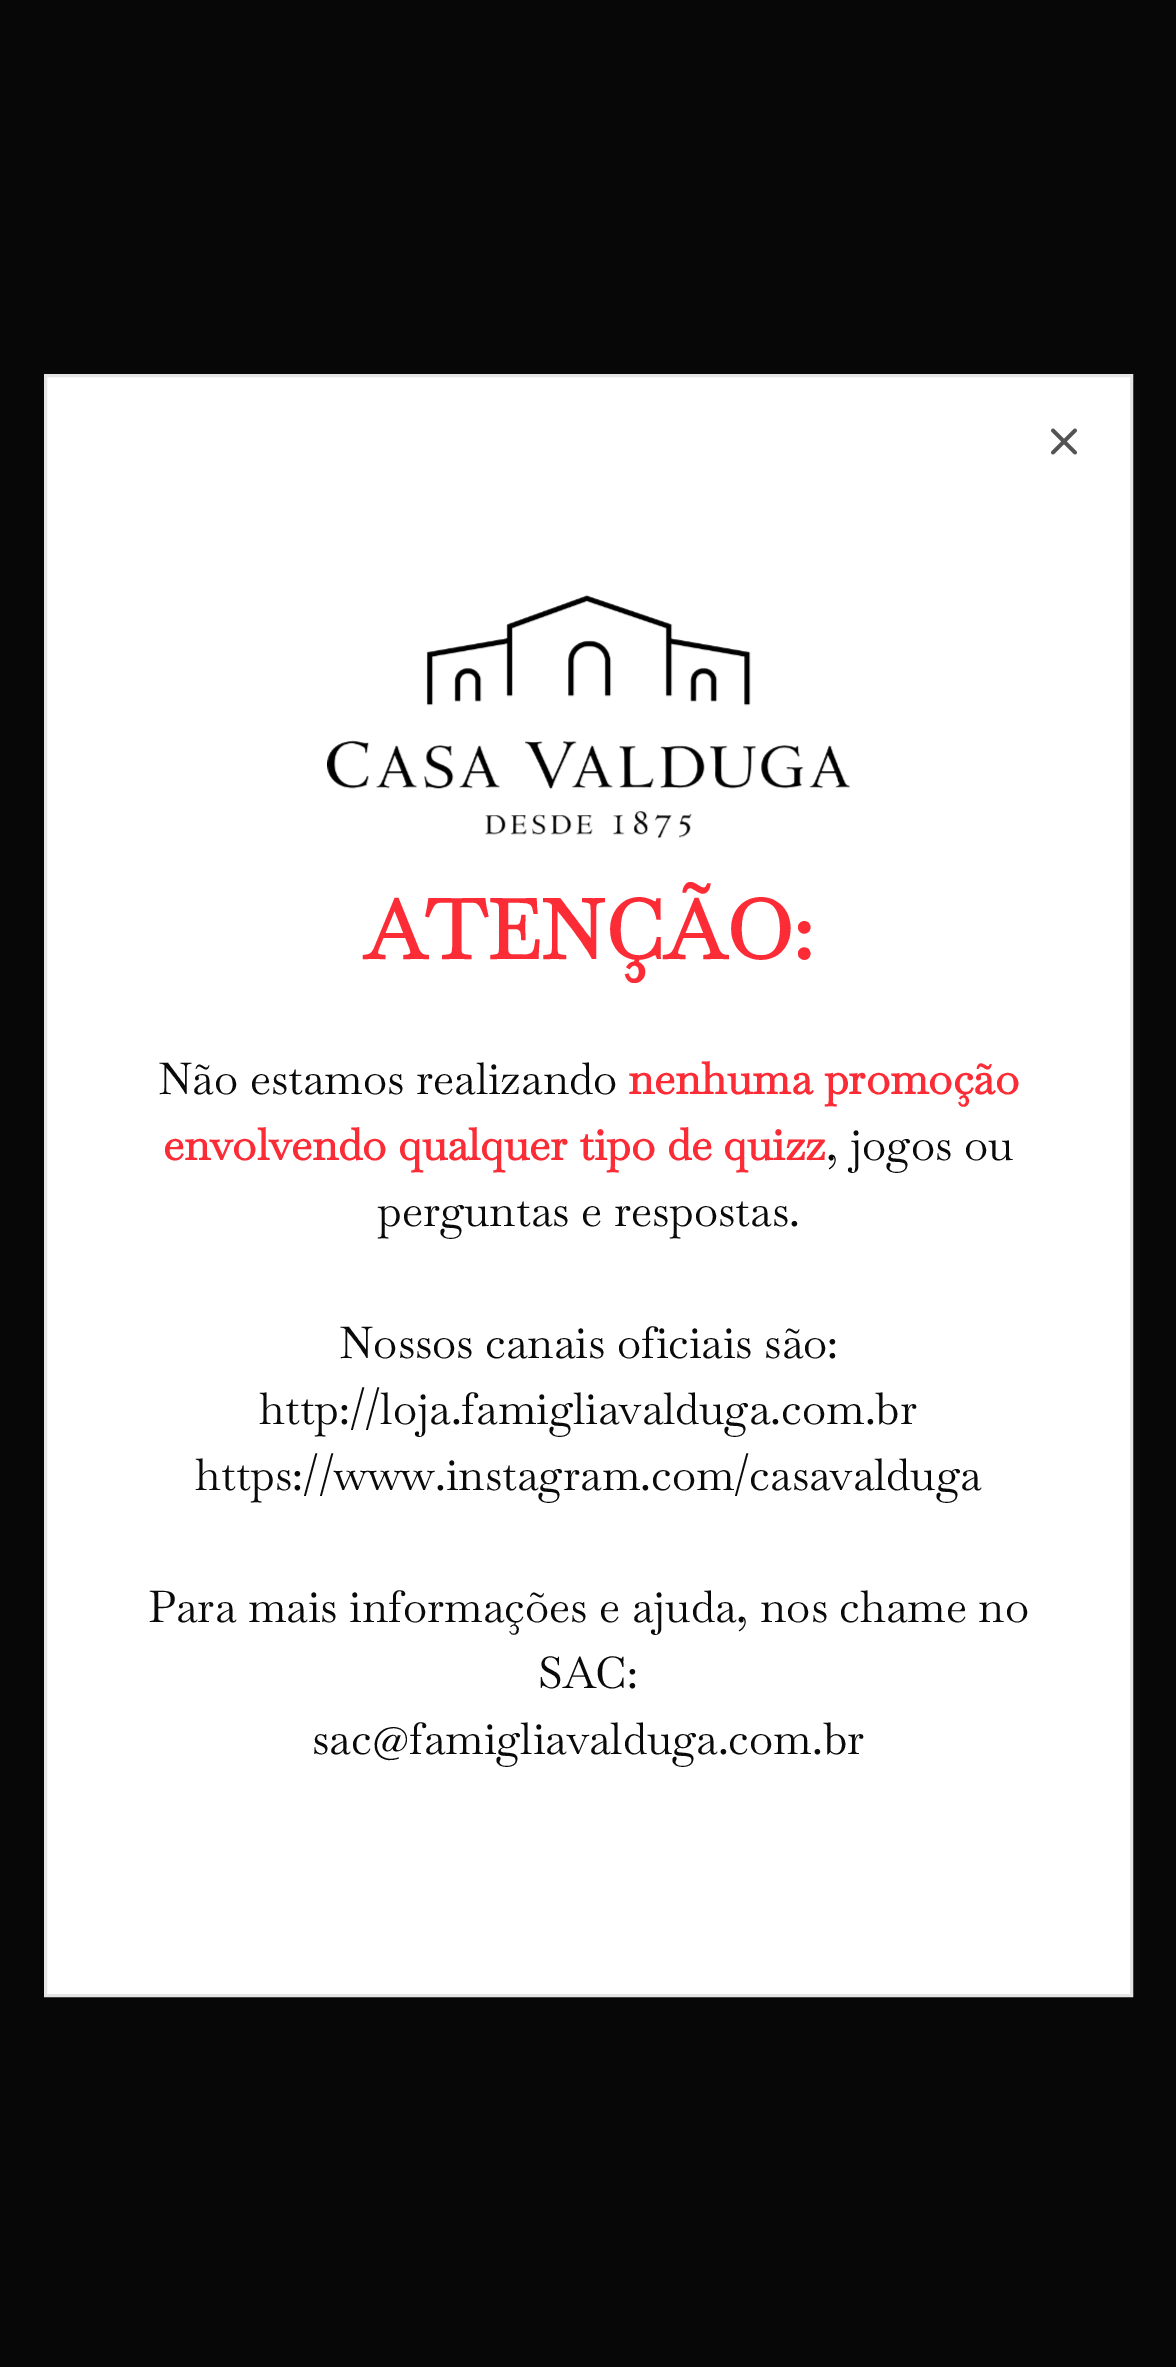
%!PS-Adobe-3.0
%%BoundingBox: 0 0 1176 2367
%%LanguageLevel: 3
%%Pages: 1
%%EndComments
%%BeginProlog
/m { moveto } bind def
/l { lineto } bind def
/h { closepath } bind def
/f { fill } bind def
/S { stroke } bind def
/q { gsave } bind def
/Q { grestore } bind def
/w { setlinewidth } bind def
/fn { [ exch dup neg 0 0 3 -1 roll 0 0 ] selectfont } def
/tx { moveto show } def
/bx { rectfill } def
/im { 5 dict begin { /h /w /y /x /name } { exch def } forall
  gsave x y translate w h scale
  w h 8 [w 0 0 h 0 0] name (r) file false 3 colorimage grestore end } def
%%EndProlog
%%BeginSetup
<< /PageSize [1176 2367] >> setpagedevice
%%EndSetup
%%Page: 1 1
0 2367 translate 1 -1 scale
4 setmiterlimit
0.027 setgray
0 0 1176 2367 bx
1 setgray
45.5 375.5 m 1131.5 375.5 l 1131.5 1995.5 l 45.5 1995.5 l h q f Q
0.898 setgray
3 w
S
0.329 setgray
3.7 w
1 setlinecap
1 setlinejoin
1075 430.5 m 1053 452.5 l 1053 430.5 m 1075 452.5 l S
(image0.raw) 327 595 523 244 im
/Baskervville-Bold 82.5 fn
0.984 0.173 0.212 setrgbcolor
(ATENÇÃO:) 364 959 tx
/Baskervville-Regular 44 fn
0.039 setgray
(Não estamos realizando) 158 1094 tx
/Baskervville-Bold 44 fn
0.984 0.173 0.212 setrgbcolor
(nenhuma promoção) 628 1094 tx
(envolvendo qualquer tipo de quizz) 163 1160 tx
/Baskervville-Regular 44 fn
0.039 setgray
(, jogos ou) 826 1160 tx
(perguntas e respostas.) 377 1226 tx
(Nossos canais oficiais são:) 339 1358 tx
(http://loja.famigliavalduga.com.br) 259 1424 tx
(https://www.instagram.com/casavalduga) 195 1490 tx
(Para mais informações e ajuda, nos chame no) 148 1622 tx
(SAC:) 538 1688 tx
(sac@famigliavalduga.com.br) 312 1754 tx
showpage
%%EOF
